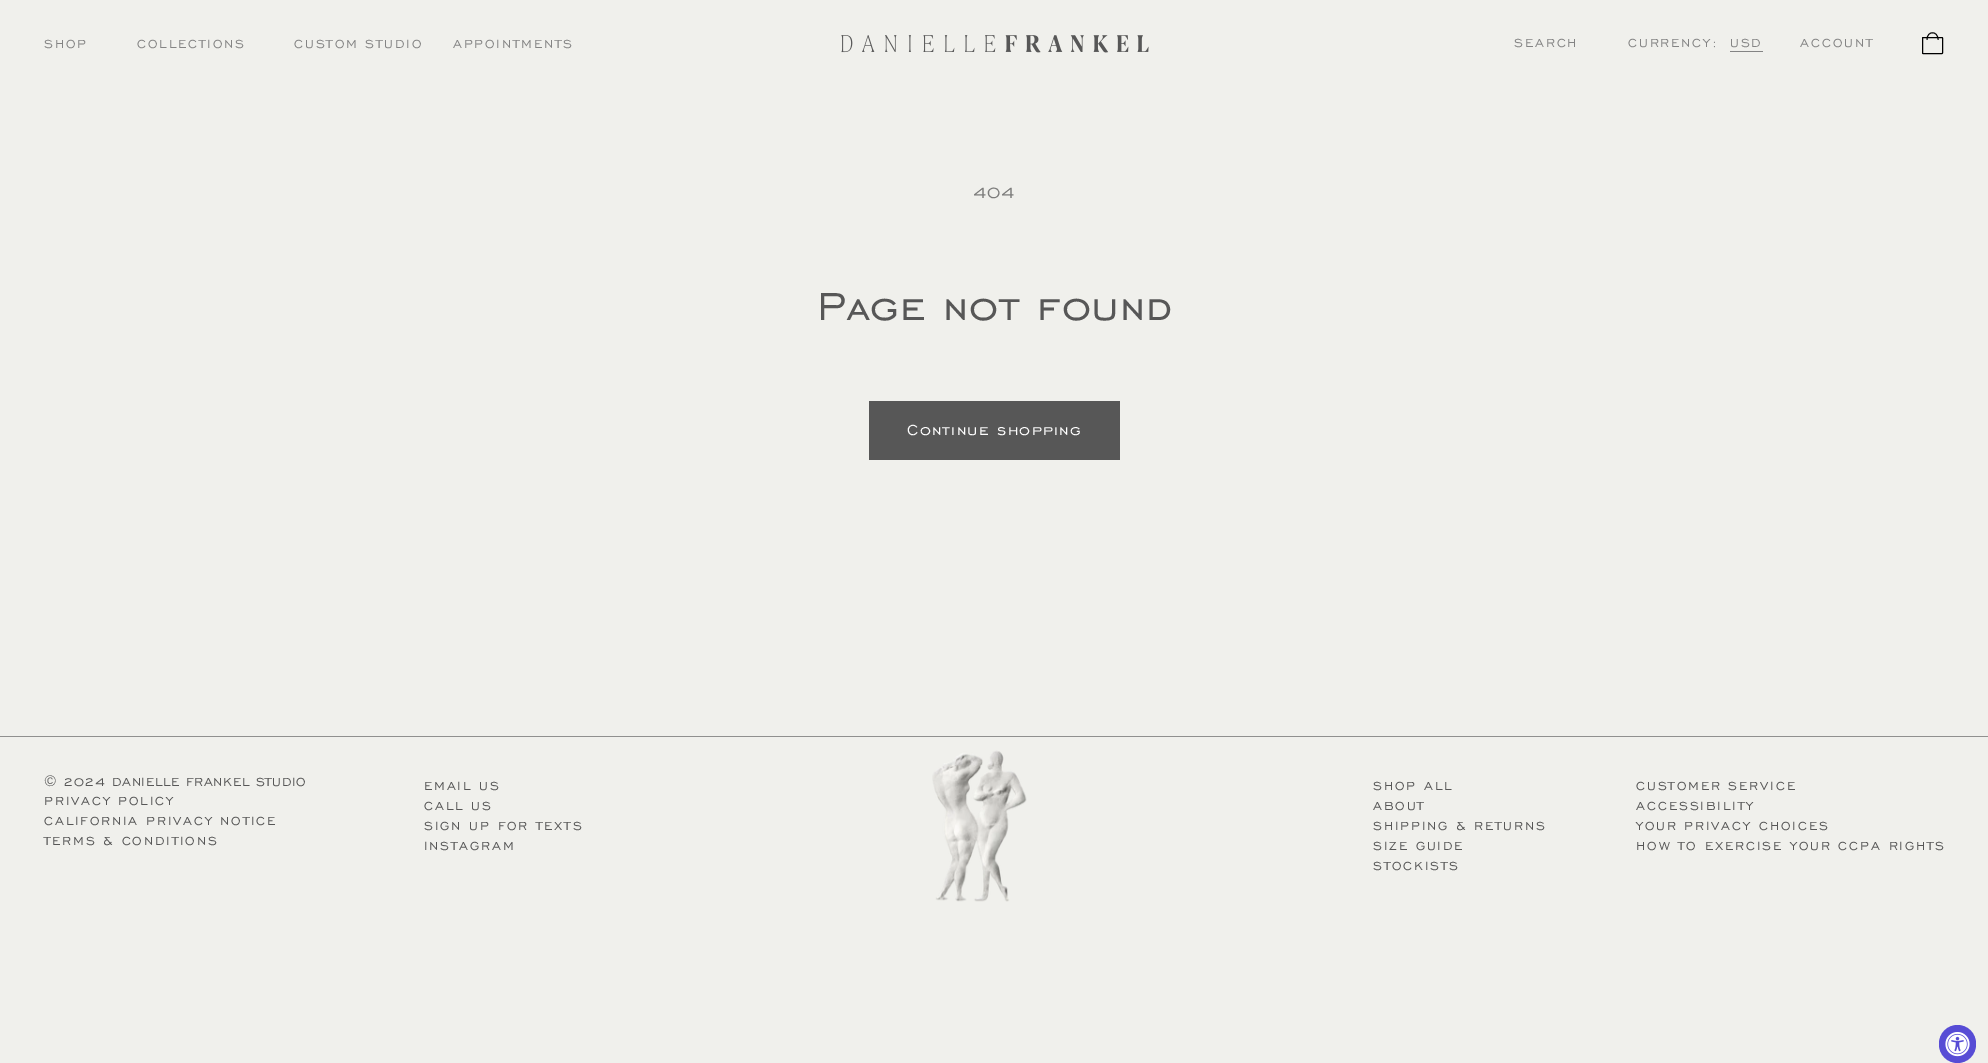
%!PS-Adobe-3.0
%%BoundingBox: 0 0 1988 1063
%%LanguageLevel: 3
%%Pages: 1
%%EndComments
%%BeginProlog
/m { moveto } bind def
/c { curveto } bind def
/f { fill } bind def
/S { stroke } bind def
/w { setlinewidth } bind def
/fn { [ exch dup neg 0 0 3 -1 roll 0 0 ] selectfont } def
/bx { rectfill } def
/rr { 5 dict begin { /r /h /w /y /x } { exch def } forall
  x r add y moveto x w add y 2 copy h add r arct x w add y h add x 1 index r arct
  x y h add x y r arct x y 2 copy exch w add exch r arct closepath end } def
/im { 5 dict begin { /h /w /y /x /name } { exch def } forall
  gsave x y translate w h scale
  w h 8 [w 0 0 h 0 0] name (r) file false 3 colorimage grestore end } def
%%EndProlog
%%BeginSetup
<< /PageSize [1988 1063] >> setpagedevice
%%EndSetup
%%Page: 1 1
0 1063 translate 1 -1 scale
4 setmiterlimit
0.941 0.941 0.925 setrgbcolor
0 0 1988 1063 bx
/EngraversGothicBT-Regular 15 fn
0.518 setgray
44 48 m 1.9 0 (SHOP) ashow
137 48 m 1.9 0 (COLLECTIONS) ashow
294 48 m 1.9 0 (CUSTOM STUDIO) ashow
453 48 m 1.9 0 (APPOINTMENTS) ashow
(image0.raw) 841 35 308 18 im
1514 47 m 1.9 0 (SEARCH) ashow
1628 47 m 1.9 0 (CURRENCY:) ashow
1730 47 m 1.9 0 (USD) ashow
1730 51 33 1 bx
1800 47 m 1.9 0 (ACCOUNT) ashow
0 setgray
1922.5 37.5 20 16 0.5 rr S
0.9 w
1 setlinecap
1927 39.5 m 1927 30.5 1938 30.5 1938 39.5 c S
/EngraversGothicBT-Regular 20 fn
0.49 0.49 0.486 setrgbcolor
973 198 m 0.75 0 (404) ashow
/EngraversGothicBT-Regular 50 fn
0.341 setgray
817 320 m 0.75 0 (Page not found) ashow
869 401 251 59 bx
/EngraversGothicBT-Regular 18.75 fn
1 setgray
907 435 m 1.25 0 (Continue shopping) ashow
0.565 0.565 0.561 setrgbcolor
0 736 1988 1 bx
/EngraversGothicBT-Regular 15 fn
0.341 setgray
44 786 m 0.75 0 (© 2024 DANIELLE FRANKEL STUDIO) ashow
44 805 m 1.9 0 (PRIVACY POLICY) ashow
44 825 m 1.9 0 (CALIFORNIA PRIVACY NOTICE) ashow
44 845 m 1.9 0 (TERMS & CONDITIONS) ashow
424 790 m 1.9 0 (EMAIL US) ashow
424 810 m 1.9 0 (CALL US) ashow
424 830 m 1.9 0 (SIGN UP FOR TEXTS) ashow
424 850 m 1.9 0 (INSTAGRAM) ashow
(image1.raw) 932 750 95 152 im
1373 790 m 1.9 0 (SHOP ALL) ashow
1373 810 m 1.9 0 (ABOUT) ashow
1373 830 m 1.9 0 (SHIPPING & RETURNS) ashow
1373 850 m 1.9 0 (SIZE GUIDE) ashow
1373 870 m 1.9 0 (STOCKISTS) ashow
1636 790 m 1.9 0 (CUSTOMER SERVICE) ashow
1636 810 m 1.9 0 (ACCESSIBILITY) ashow
1636 830 m 1.9 0 (YOUR PRIVACY CHOICES) ashow
1636 850 m 1.9 0 (HOW TO EXERCISE YOUR CCPA RIGHTS) ashow
0.341 0.298 0.835 setrgbcolor
1939 1025 37 38 18.5 rr f
(image2.raw) 1945 1032 25 25 im
showpage
%%EOF
